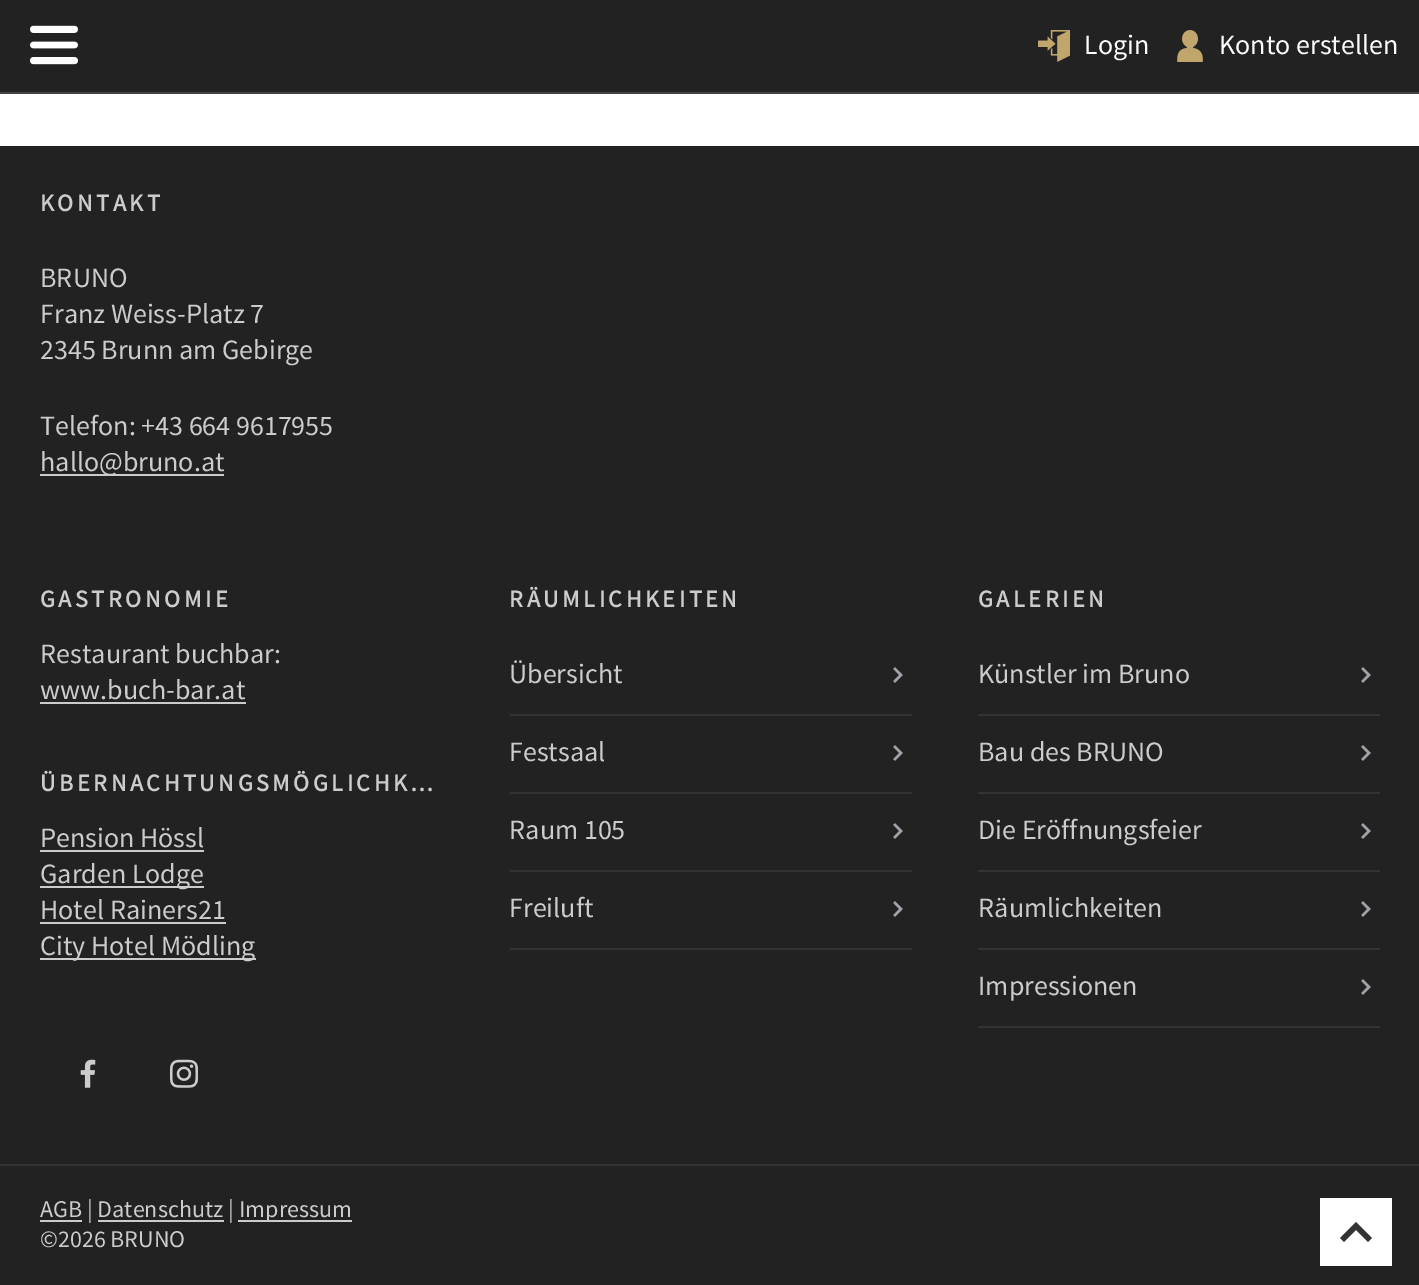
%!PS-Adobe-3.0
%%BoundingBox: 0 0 1419 1285
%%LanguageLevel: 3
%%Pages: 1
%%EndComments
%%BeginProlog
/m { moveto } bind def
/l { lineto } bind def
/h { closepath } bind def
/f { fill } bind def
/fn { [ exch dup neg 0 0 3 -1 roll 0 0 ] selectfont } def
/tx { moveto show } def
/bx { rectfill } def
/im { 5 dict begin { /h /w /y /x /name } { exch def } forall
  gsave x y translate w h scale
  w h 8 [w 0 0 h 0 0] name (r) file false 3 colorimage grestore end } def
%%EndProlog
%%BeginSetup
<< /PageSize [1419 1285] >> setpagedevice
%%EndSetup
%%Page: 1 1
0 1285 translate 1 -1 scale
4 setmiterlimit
0.133 setgray
0 0 1419 1285 bx
0.267 setgray
0 92 1419 2 bx
(image0.raw) 30 25 48 40 im
(image1.raw) 1038 30 32 32 im
/SourceSansPro-Regular 28 fn
1 setgray
(Login) 1084 54 tx
(image2.raw) 1177 30 26 32 im
(Konto erstellen) 1219 54 tx
0 94 1419 52 bx
/SourceSansPro-Bold 24 fn
0.8 setgray
40 211 m 3.6 0 (KONTAKT) ashow
/SourceSansPro-Regular 28 fn
(BRUNO) 40 287 tx
(Franz Weiss-Platz 7) 40 323 tx
(2345 Brunn am Gebirge) 40 359 tx
(Telefon: +43 664 9617955) 40 435 tx
40 474 184 2 bx
(hallo@bruno.at) 40 471 tx
/SourceSansPro-Bold 24 fn
40 607 m 3.6 0 (GASTRONOMIE) ashow
/SourceSansPro-Regular 28 fn
(Restaurant buchbar:) 40 663 tx
(www.buch-bar.at) 40 699 tx
40 702 206 2 bx
/SourceSansPro-Bold 24 fn
40 791 m 3.6 0 (ÜBERNACHTUNGSMÖGLICHK…) ashow
/SourceSansPro-Regular 28 fn
(Pension Hössl) 40 847 tx
40 850 164 2 bx
40 886 164 2 bx
(Garden Lodge) 40 883 tx
(Hotel Rainers21) 40 919 tx
40 922 186 2 bx
40 958 216 2 bx
(City Hotel Mödling) 40 955 tx
/SourceSansPro-Bold 24 fn
509 607 m 3.6 0 (RÄUMLICHKEITEN) ashow
0.2 setgray
510 714 402 2 bx
/SourceSansPro-Regular 28 fn
0.8 setgray
(Übersicht) 509 683 tx
(image3.raw) 893 667 10 16 im
0.2 setgray
510 792 402 2 bx
0.8 setgray
(Festsaal) 509 761 tx
(image3.raw) 893 745 10 16 im
0.2 setgray
510 870 402 2 bx
0.8 setgray
(Raum 105) 509 839 tx
(image3.raw) 893 823 10 16 im
0.2 setgray
510 948 402 2 bx
0.8 setgray
(Freiluft) 509 917 tx
(image3.raw) 893 901 10 16 im
/SourceSansPro-Bold 24 fn
978 607 m 3.6 0 (GALERIEN) ashow
0.2 setgray
978 714 402 2 bx
/SourceSansPro-Regular 28 fn
0.8 setgray
(Künstler im Bruno) 978 683 tx
(image3.raw) 1361 667 10 16 im
0.2 setgray
978 792 402 2 bx
0.8 setgray
(Bau des BRUNO) 978 761 tx
(image3.raw) 1361 745 10 16 im
0.2 setgray
978 870 402 2 bx
0.8 setgray
(Die Eröffnungsfeier) 978 839 tx
(image3.raw) 1361 823 10 16 im
0.2 setgray
978 948 402 2 bx
0.8 setgray
(Räumlichkeiten) 978 917 tx
(image3.raw) 1361 901 10 16 im
0.2 setgray
978 1026 402 2 bx
0.8 setgray
(Impressionen) 978 995 tx
(image3.raw) 1361 979 10 16 im
(image4.raw) 80 1059 16 29 im
(image5.raw) 170 1059 28 29 im
0.2 setgray
0 1164 1419 2 bx
0.8 setgray
40 1220 42 2 bx
/SourceSansPro-Regular 24 fn
(AGB | Datenschutz |) 40 1217 tx
238 1220 114 2 bx
(Impressum) 239 1217 tx
98 1220 126 2 bx
(©2026 BRUNO) 40 1247 tx
1 setgray
1320 1198 72 68 bx
0.2 setgray
1356 1222 m 1340 1238 l 1344 1242 l 1356 1230 l 1368 1242 l 1372 1238 l h f
showpage
%%EOF
